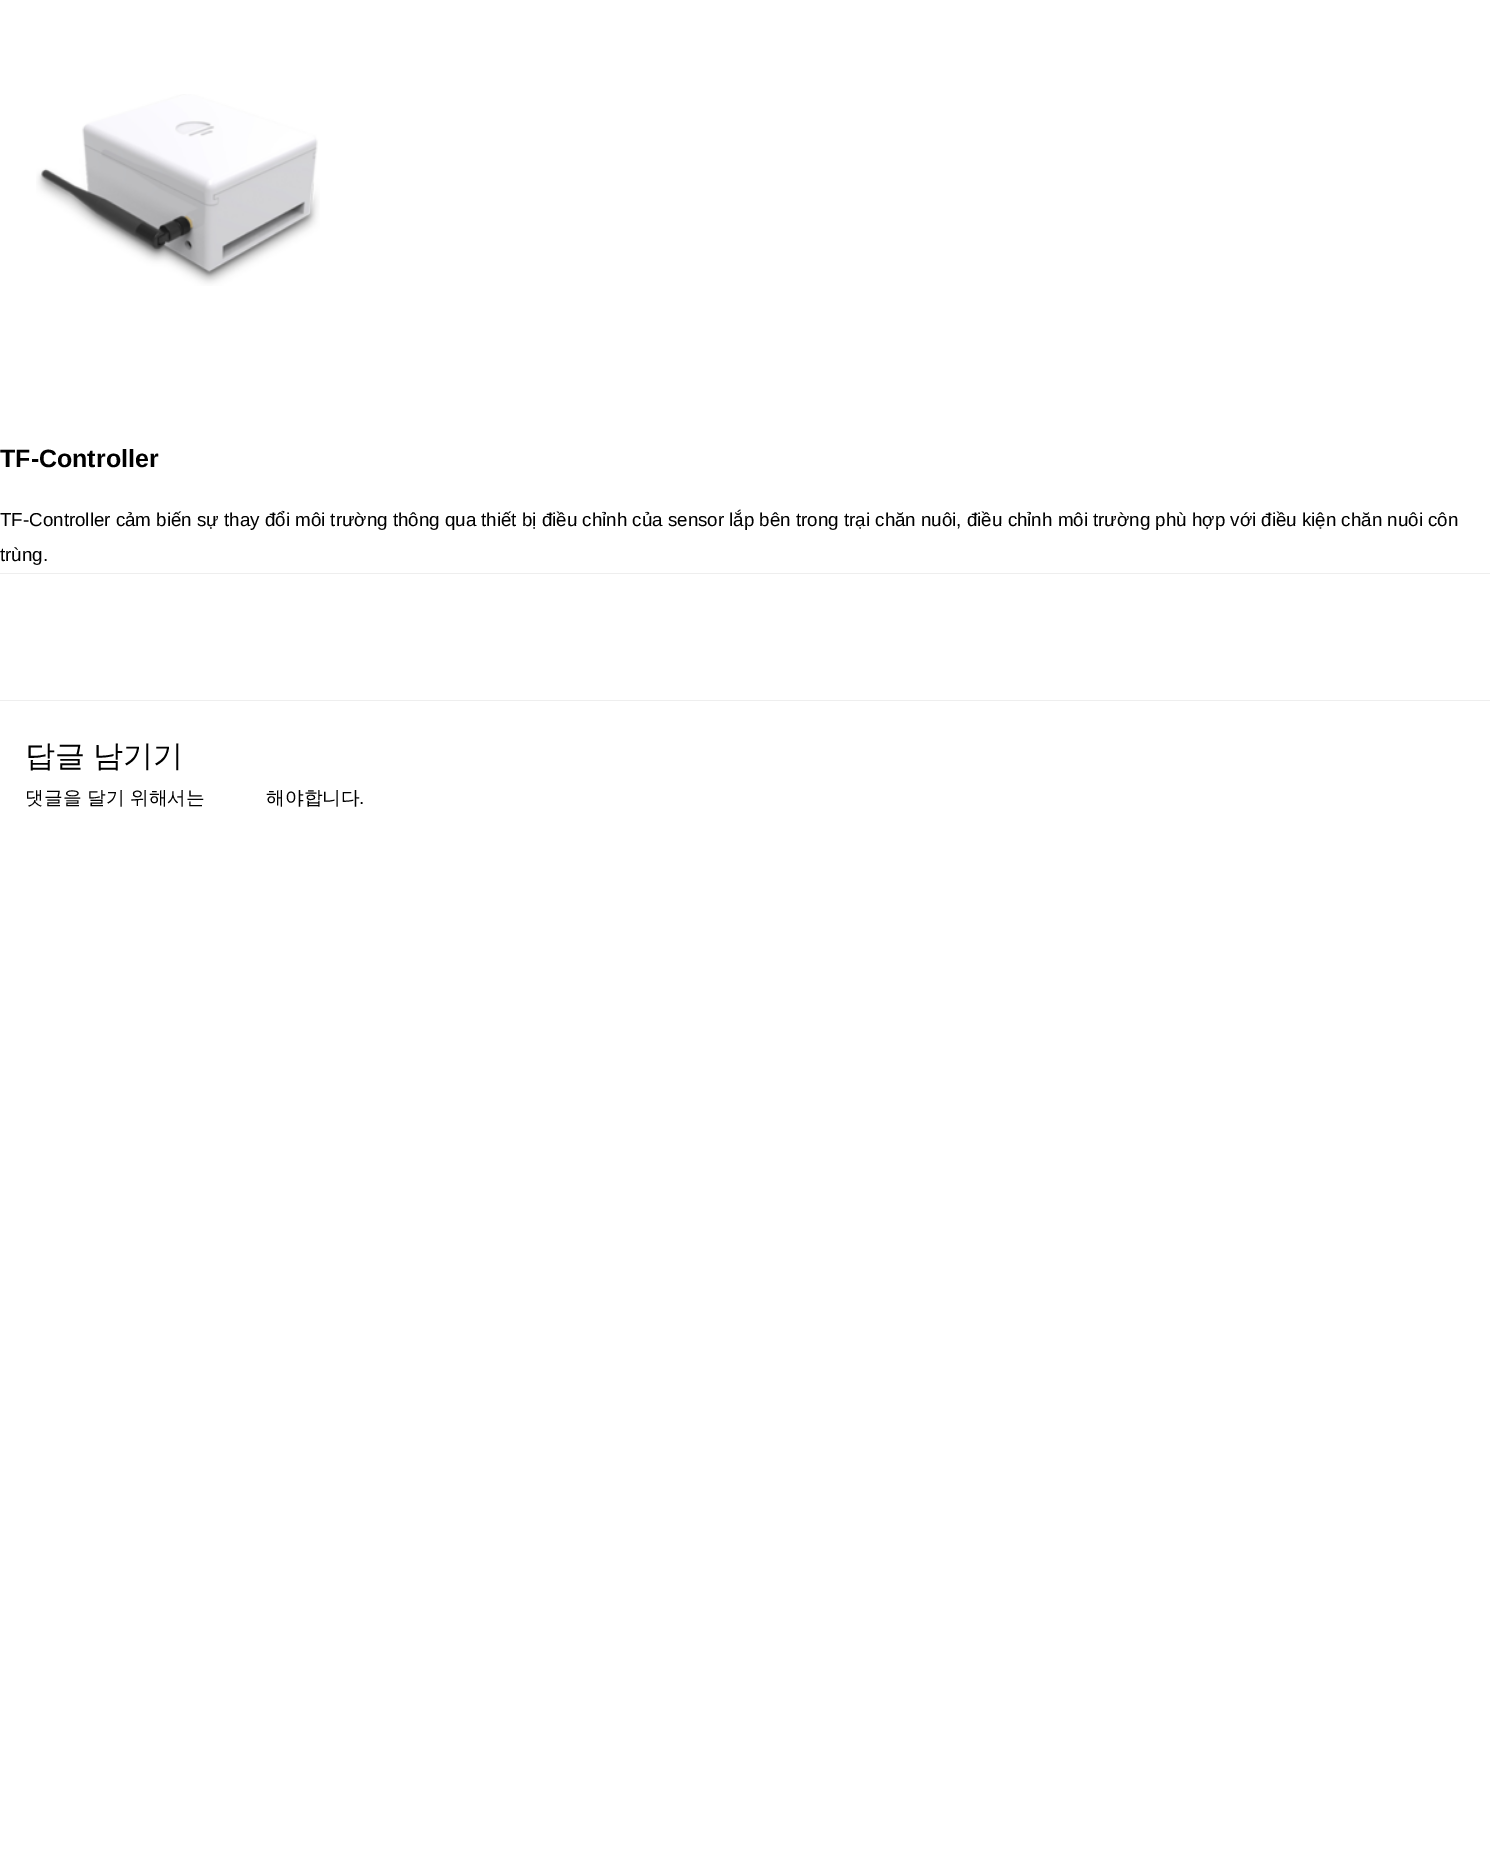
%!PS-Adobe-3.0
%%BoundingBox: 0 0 1490 1854
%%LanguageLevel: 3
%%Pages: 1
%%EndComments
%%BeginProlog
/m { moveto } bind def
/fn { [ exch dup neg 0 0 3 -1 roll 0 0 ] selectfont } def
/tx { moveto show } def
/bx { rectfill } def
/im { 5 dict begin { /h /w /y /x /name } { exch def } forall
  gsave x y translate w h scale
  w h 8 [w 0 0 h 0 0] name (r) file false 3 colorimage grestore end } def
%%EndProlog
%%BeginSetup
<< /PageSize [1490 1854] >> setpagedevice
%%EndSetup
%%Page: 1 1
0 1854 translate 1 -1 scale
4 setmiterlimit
1 setgray
0 0 1490 1854 bx
(image0.raw) 36 94 284 192 im
/LiberationSans-Bold 25 fn
0 setgray
(TF-Controller) 0 467 tx
/LiberationSans-Regular 18.75 fn
(TF-Controller cảm biến sự thay đổi môi trường thông qua thiết bị điều chỉnh của sensor lắp bên trong trại chăn nuôi, điều chỉnh môi trường phù hợp với điều kiện chăn nuôi côn) 0 526 tx
(trùng.) 0 561 tx
0.933 setgray
0 573 1490 1 bx
0 700 1490 1 bx
/WenQuanYiZenHei-Medium 30 fn
0 setgray
25 766 m -1 0 32 (답글 남기기) widthshow
/WenQuanYiZenHei-Medium 18.75 fn
(댓글을 달기 위해서는) 25 804 tx
(해야합니다) 266 804 tx
/LiberationSans-Regular 18.75 fn
(.) 359 804 tx
showpage
%%EOF
